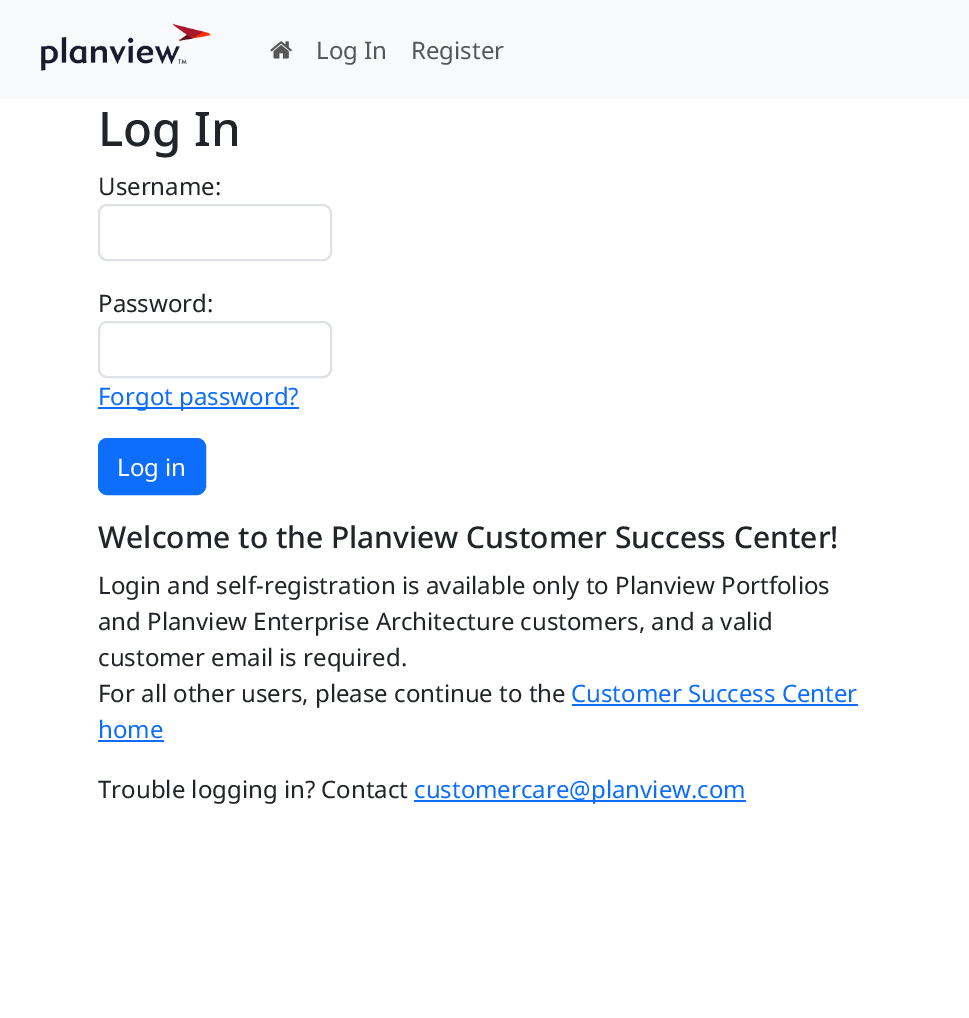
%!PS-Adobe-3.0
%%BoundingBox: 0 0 969 1018
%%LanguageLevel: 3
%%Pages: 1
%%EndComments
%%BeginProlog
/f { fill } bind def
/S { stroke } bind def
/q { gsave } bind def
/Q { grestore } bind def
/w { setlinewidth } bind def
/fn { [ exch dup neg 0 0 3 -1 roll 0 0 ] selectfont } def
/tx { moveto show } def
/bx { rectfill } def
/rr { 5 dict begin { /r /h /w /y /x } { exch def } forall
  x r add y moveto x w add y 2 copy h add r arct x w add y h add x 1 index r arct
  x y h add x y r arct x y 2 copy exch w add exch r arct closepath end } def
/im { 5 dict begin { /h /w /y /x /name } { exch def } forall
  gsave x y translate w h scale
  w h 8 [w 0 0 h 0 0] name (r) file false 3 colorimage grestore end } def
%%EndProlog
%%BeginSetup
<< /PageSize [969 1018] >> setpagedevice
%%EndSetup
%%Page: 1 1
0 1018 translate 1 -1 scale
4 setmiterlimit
1 setgray
0 0 969 1018 bx
0.973 0.976 0.98 setrgbcolor
0 0 969 99 bx
(image0.raw) 41 23 170 48 im
(image1.raw) 270 41 22 18 im
/NotoSans-Regular 24 fn
0.341 0.341 0.345 setrgbcolor
(Log In) 316 59 tx
(Register) 411 59 tx
/NotoSans-Medium 47.5 fn
0.129 0.145 0.161 setrgbcolor
(Log In) 98 146 tx
/NotoSans-Regular 24 fn
(Username:) 98 195 tx
0.871 0.886 0.902 setrgbcolor
2 w
99 205 232 55 8 rr S
0.129 0.145 0.161 setrgbcolor
(Password:) 98 312 tx
0.871 0.886 0.902 setrgbcolor
99 322 232 55 8 rr S
0.051 0.431 0.992 setrgbcolor
98 407 201 2 bx
(Forgot password?) 98 405 tx
99 439 106 55 8 rr q f Q
S
1 setgray
(Log in) 117 476 tx
/NotoSans-Medium 30 fn
0.129 0.145 0.161 setrgbcolor
(Welcome to the Planview Customer Success Center!) 98 548 tx
/NotoSans-Regular 24 fn
(Login and self-registration is available only to Planview Portfolios) 98 594 tx
(and Planview Enterprise Architecture customers, and a valid) 98 630 tx
(customer email is required.) 98 666 tx
(For all other users, please continue to the) 98 702 tx
0.051 0.431 0.992 setrgbcolor
(Customer Success Center) 571 702 tx
572 704 286 2 bx
(home) 98 738 tx
98 740 66 2 bx
0.129 0.145 0.161 setrgbcolor
(Trouble logging in? Contact) 98 798 tx
0.051 0.431 0.992 setrgbcolor
414 800 332 2 bx
(customercare@planview.com) 414 798 tx
showpage
%%EOF
